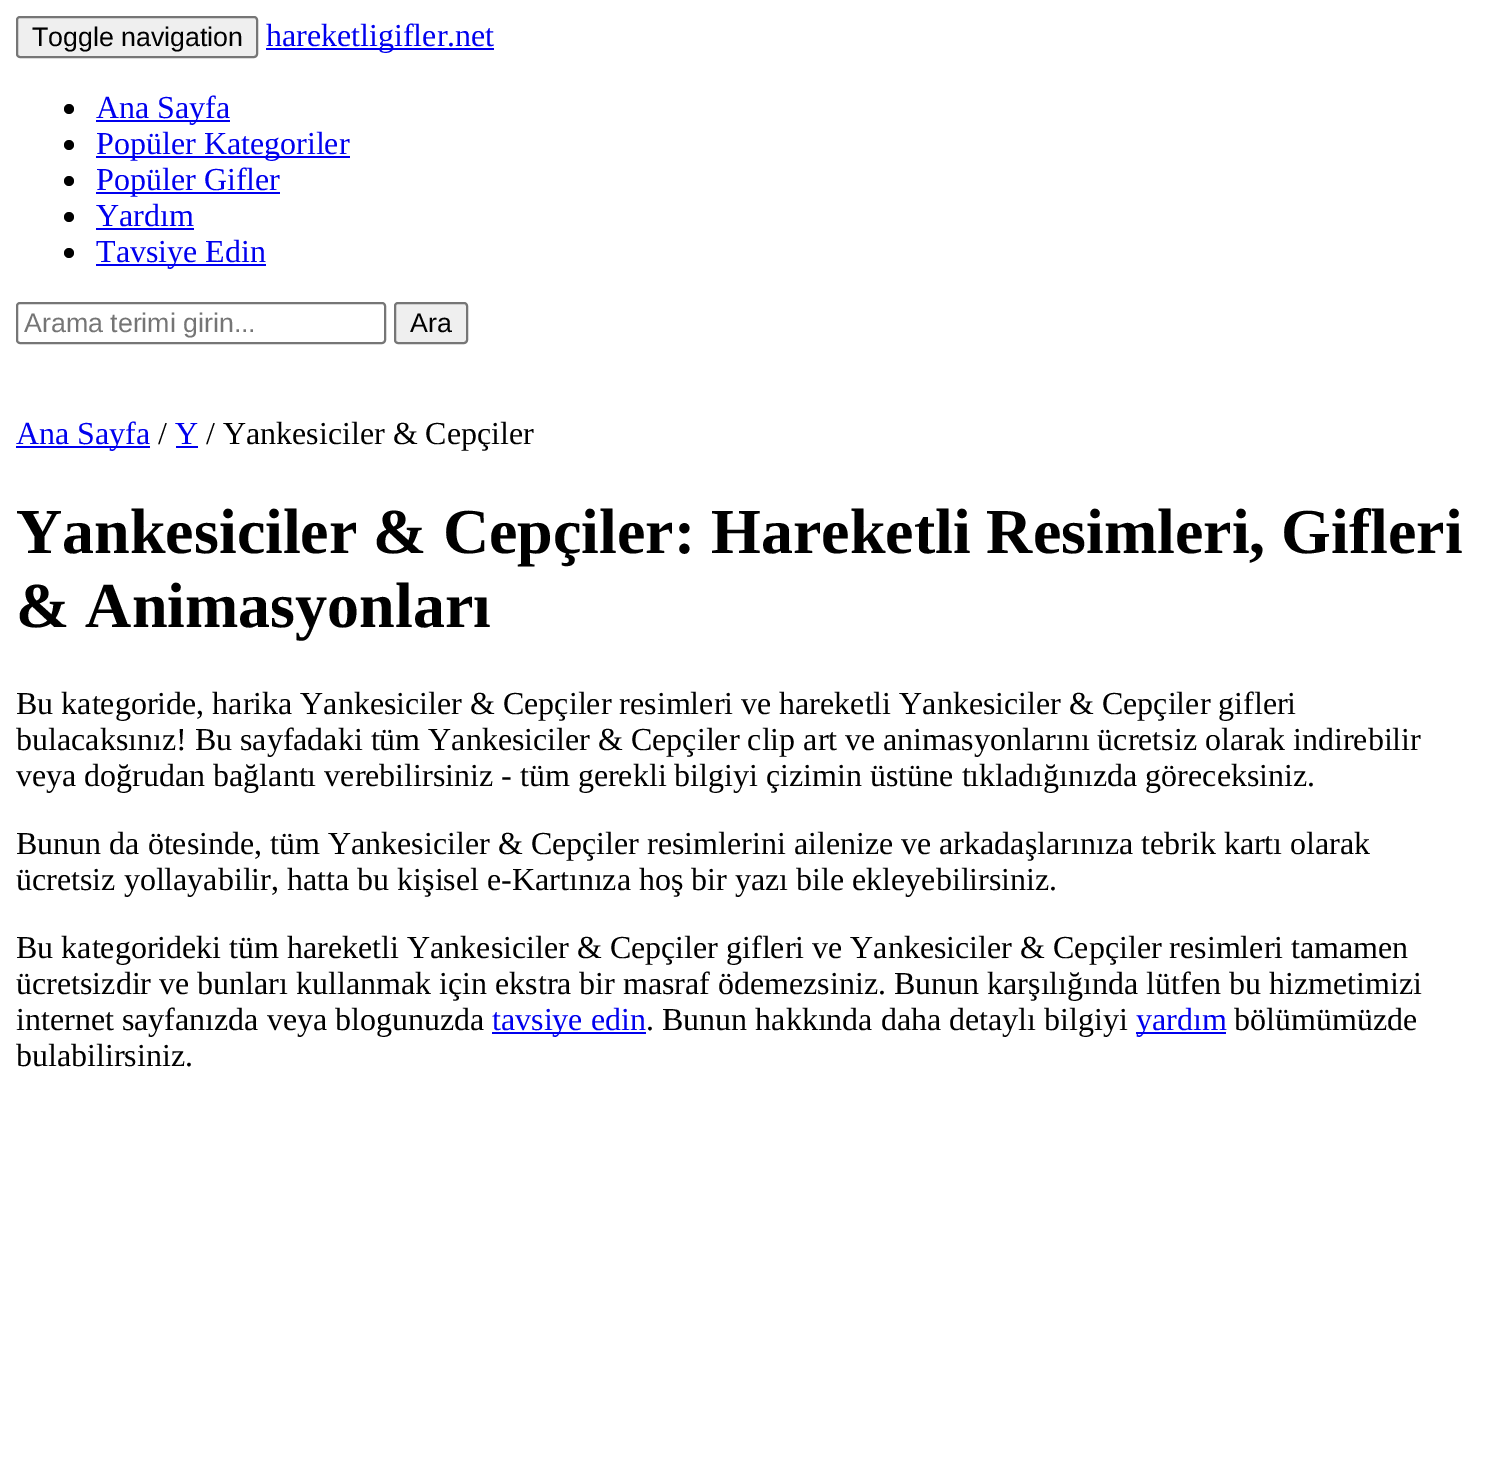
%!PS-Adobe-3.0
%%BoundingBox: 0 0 1490 1466
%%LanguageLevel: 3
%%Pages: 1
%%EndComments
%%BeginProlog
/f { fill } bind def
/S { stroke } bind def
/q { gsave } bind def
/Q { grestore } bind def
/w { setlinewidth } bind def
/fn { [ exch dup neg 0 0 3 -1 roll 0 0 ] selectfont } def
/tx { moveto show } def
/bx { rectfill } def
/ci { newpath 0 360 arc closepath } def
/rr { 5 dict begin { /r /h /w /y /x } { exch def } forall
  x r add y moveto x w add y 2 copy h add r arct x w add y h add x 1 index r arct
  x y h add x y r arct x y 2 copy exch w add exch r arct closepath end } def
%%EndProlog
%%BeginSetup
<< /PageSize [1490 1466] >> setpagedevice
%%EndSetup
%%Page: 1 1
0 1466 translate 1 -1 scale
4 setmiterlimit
1 setgray
0 0 1490 1466 bx
0.937 setgray
17 17 240 40 3 rr q f Q
0.463 setgray
2 w
S
/LiberationSans-Regular 26.75 fn
0 setgray
(Toggle navigation) 32 46 tx
0 0 0.933 setrgbcolor
266 48 228 2 bx
/LiberationSerif-Regular 32 fn
(hareketligifler.net) 266 46 tx
0 setgray
69 109 5 ci f
0 0 0.933 setrgbcolor
96 120 134 2 bx
(Ana Sayfa) 96 118 tx
0 setgray
69 145 5 ci f
0 0 0.933 setrgbcolor
96 156 254 2 bx
(Popüler Kategoriler) 96 154 tx
0 setgray
69 181 5 ci f
0 0 0.933 setrgbcolor
96 192 184 2 bx
(Popüler Gifler) 96 190 tx
0 setgray
69 217 5 ci f
0 0 0.933 setrgbcolor
(Yardım) 96 226 tx
96 228 98 2 bx
0 setgray
69 253 5 ci f
0 0 0.933 setrgbcolor
96 264 170 2 bx
(Tavsiye Edin) 96 262 tx
0.463 setgray
17 303 368 40 3 rr S
/LiberationSans-Regular 26.75 fn
0.459 setgray
(Arama terimi girin...) 24 332 tx
0.937 setgray
395 303 72 40 3 rr q f Q
0.463 setgray
S
0 setgray
(Ara) 410 332 tx
0 0 0.933 setrgbcolor
16 446 134 2 bx
/LiberationSerif-Regular 32 fn
(Ana Sayfa) 16 444 tx
0 setgray
(/) 158 444 tx
0 0 0.933 setrgbcolor
(Y) 175 444 tx
176 446 22 2 bx
0 setgray
(/ Yankesiciler & Cepçiler) 206 444 tx
/LiberationSerif-Bold 64 fn
(Yankesiciler & Cepçiler: Hareketli Resimleri, Gifleri) 16 553 tx
(& Animasyonları) 16 627 tx
/LiberationSerif-Regular 32 fn
(Bu kategoride, harika Yankesiciler & Cepçiler resimleri ve hareketli Yankesiciler & Cepçiler gifleri) 16 714 tx
(bulacaksınız! Bu sayfadaki tüm Yankesiciler & Cepçiler clip art ve animasyonlarını ücretsiz olarak indirebilir) 16 750 tx
(veya doğrudan bağlantı verebilirsiniz - tüm gerekli bilgiyi çizimin üstüne tıkladığınızda göreceksiniz.) 16 786 tx
(Bunun da ötesinde, tüm Yankesiciler & Cepçiler resimlerini ailenize ve arkadaşlarınıza tebrik kartı olarak) 16 854 tx
(ücretsiz yollayabilir, hatta bu kişisel e-Kartınıza hoş bir yazı bile ekleyebilirsiniz.) 16 890 tx
(Bu kategorideki tüm hareketli Yankesiciler & Cepçiler gifleri ve Yankesiciler & Cepçiler resimleri tamamen) 16 958 tx
(ücretsizdir ve bunları kullanmak için ekstra bir masraf ödemezsiniz. Bunun karşılığında lütfen bu hizmetimizi) 16 994 tx
(internet sayfanızda veya blogunuzda) 16 1030 tx
0 0 0.933 setrgbcolor
492 1032 154 2 bx
(tavsiye edin) 492 1030 tx
0 setgray
(. Bunun hakkında daha detaylı bilgiyi) 646 1030 tx
0 0 0.933 setrgbcolor
1136 1032 90 2 bx
(yardım) 1136 1030 tx
0 setgray
(bölümümüzde) 1234 1030 tx
(bulabilirsiniz.) 16 1066 tx
showpage
%%EOF
